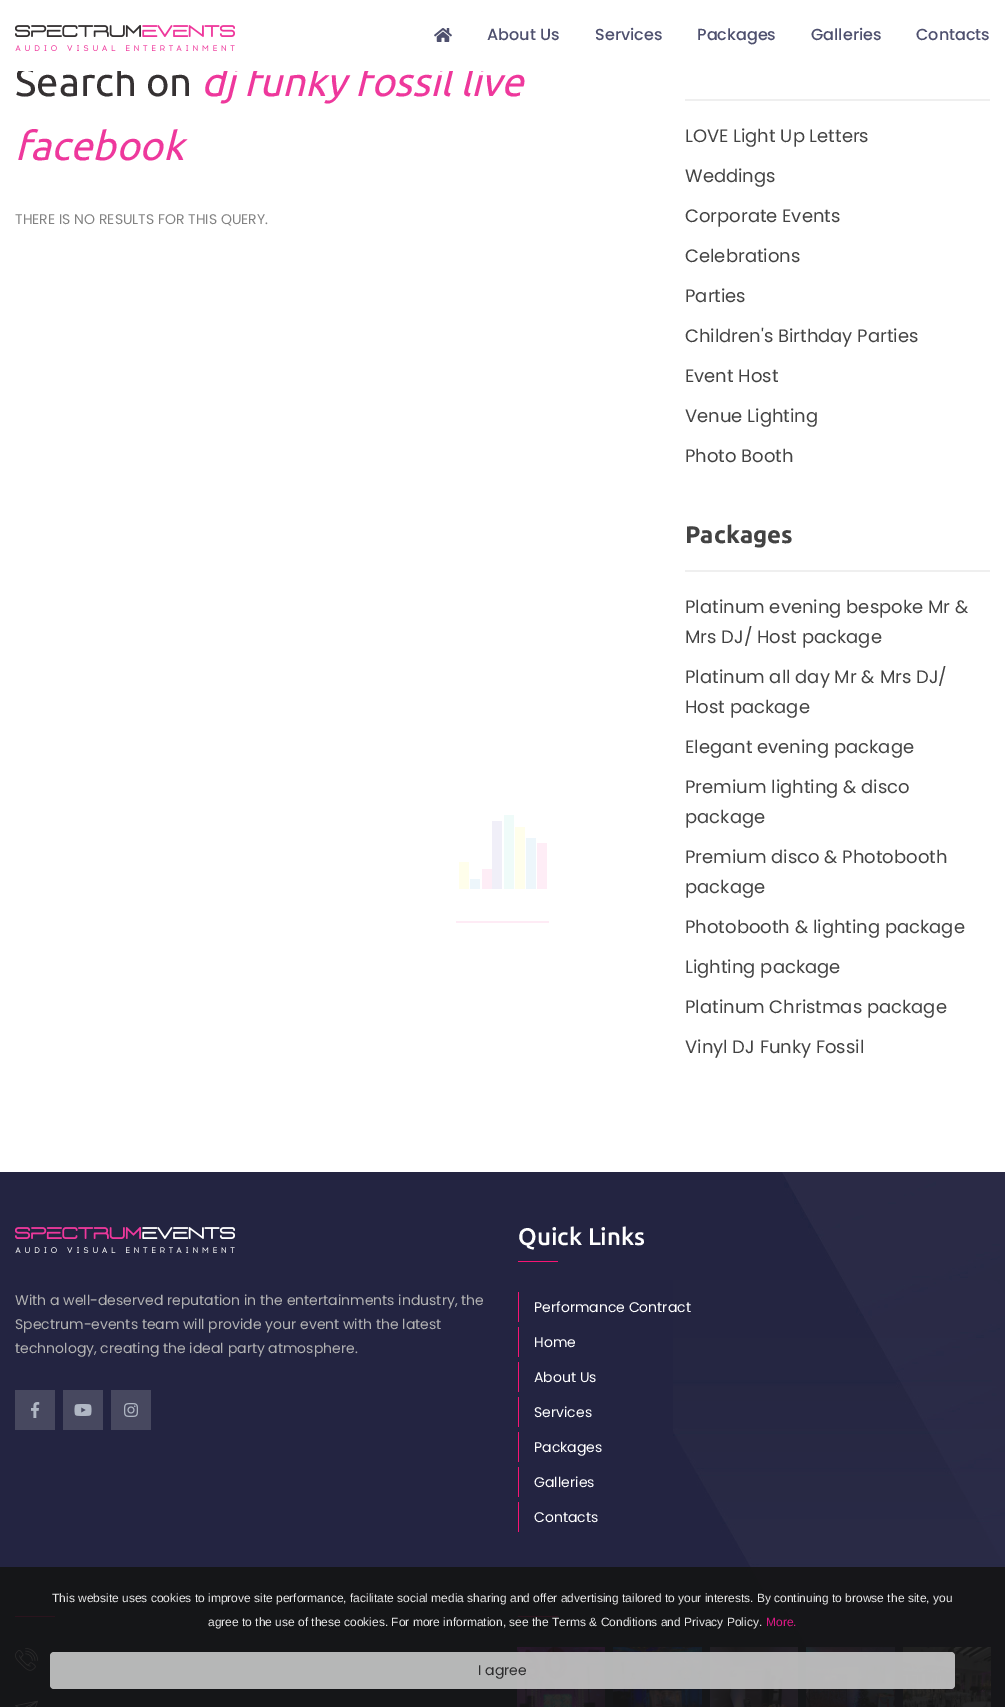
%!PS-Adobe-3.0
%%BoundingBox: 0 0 1005 1707
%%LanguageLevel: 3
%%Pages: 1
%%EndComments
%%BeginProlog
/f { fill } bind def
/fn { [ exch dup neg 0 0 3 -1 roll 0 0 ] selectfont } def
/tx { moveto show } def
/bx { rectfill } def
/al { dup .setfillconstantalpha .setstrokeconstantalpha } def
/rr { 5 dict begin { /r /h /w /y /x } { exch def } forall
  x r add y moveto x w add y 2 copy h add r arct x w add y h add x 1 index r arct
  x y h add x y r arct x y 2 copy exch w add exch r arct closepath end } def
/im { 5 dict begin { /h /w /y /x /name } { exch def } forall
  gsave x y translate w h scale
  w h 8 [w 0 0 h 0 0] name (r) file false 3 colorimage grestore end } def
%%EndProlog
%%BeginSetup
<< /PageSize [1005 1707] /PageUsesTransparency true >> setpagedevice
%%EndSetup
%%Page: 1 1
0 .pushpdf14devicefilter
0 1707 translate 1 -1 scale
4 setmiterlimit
1 setgray
0 0 1005 1707 bx
/Ubuntu-Regular 40 fn
0.208 0.192 0.196 setrgbcolor
(Search on) 15 96 tx
/Ubuntu-Italic 40 fn
0.933 0.22 0.612 setrgbcolor
(dj funky fossil live) 201 96 tx
1 setgray
18 65 468 6 bx
(image0.raw) 15 25 220 26 im
(image1.raw) 434 28 18 14 im
/Poppins-Medium 16 fn
0.306 0.314 0.431 setrgbcolor
(About Us) 487 40 tx
(Services) 595 40 tx
(Packages) 697 40 tx
(Galleries) 811 40 tx
(Contacts) 916 40 tx
/Ubuntu-Italic 40 fn
0.933 0.22 0.612 setrgbcolor
(facebook) 15 160 tx
/Poppins-Regular 14 fn
0.51 setgray
(THERE IS NO RESULTS FOR THIS QUERY.) 15 224 tx
0.937 setgray
685 99 305 2 bx
/Poppins-Regular 18 fn
0.263 setgray
(LOVE Light Up Letters) 685 142 tx
(Weddings) 685 182 tx
(Corporate Events) 685 222 tx
(Celebrations) 685 262 tx
(Parties) 685 302 tx
(Children's Birthday Parties) 685 342 tx
(Event Host) 685 382 tx
(Venue Lighting) 685 422 tx
(Photo Booth) 685 462 tx
0.937 setgray
685 570 305 2 bx
/Ubuntu-Bold 24 fn
0.263 setgray
(Packages) 685 543 tx
/Poppins-Regular 18 fn
(Platinum evening bespoke Mr &) 685 613 tx
(Mrs DJ/ Host package) 685 643 tx
(Platinum all day Mr & Mrs DJ/) 685 683 tx
(Host package) 685 713 tx
(Elegant evening package) 685 753 tx
(Premium lighting & disco) 685 793 tx
(package) 685 823 tx
(Premium disco & Photobooth) 685 863 tx
(package) 685 893 tx
(Photobooth & lighting package) 685 933 tx
(Lighting package) 685 973 tx
(Platinum Christmas package) 685 1013 tx
(Vinyl DJ Funky Fossil) 685 1053 tx
0.996 0.929 0.965 setrgbcolor
537 843 10 46 bx
0.929 0.965 0.984 setrgbcolor
526 838 10 51 bx
1 0.996 0.922 setrgbcolor
515 827 10 62 bx
0.937 0.984 0.976 setrgbcolor
504 815 10 74 bx
0.941 0.937 0.973 setrgbcolor
492 821 10 68 bx
0.996 0.929 0.965 setrgbcolor
482 869 10 20 bx
0.929 0.965 0.984 setrgbcolor
470 879 10 10 bx
1 0.996 0.922 setrgbcolor
459 862 10 27 bx
0.996 0.922 0.961 setrgbcolor
456 921 93 2 bx
0.137 0.141 0.255 setrgbcolor
0 1172 673 535 bx
(image2.raw) 673 1172 332 535 im
(image3.raw) 15 1227 220 26 im
/Poppins-Regular 14 fn
0.694 setgray
(With a well-deserved reputation in the entertainments industry, the) 15 1305 tx
(Spectrum-events team will provide your event with the latest) 15 1329 tx
(technology, creating the ideal party atmosphere.) 15 1353 tx
0.278 0.282 0.373 setrgbcolor
15 1390 40 40 bx
(image4.raw) 31 1402 9 16 im
63 1390 40 40 bx
(image5.raw) 74 1404 18 12 im
111 1390 40 40 bx
(image6.raw) 124 1403 14 14 im
/Ubuntu-Medium 24 fn
1 setgray
(Quick Links) 518 1245 tx
0.973 0.078 0.455 setrgbcolor
518 1261 40 1 bx
518 1292 1 30 bx
/Poppins-Regular 14 fn
1 setgray
(Performance Contract) 534 1312 tx
0.973 0.078 0.455 setrgbcolor
518 1327 1 30 bx
1 setgray
(Home) 534 1347 tx
0.973 0.078 0.455 setrgbcolor
518 1362 1 30 bx
1 setgray
(About Us) 534 1382 tx
0.973 0.078 0.455 setrgbcolor
518 1397 1 30 bx
1 setgray
(Services) 534 1417 tx
0.973 0.078 0.455 setrgbcolor
518 1432 1 30 bx
1 setgray
(Packages) 534 1452 tx
0.973 0.078 0.455 setrgbcolor
518 1467 1 30 bx
1 setgray
(Galleries) 534 1487 tx
0.973 0.078 0.455 setrgbcolor
518 1502 1 30 bx
1 setgray
(Contacts) 534 1522 tx
0.973 0.078 0.455 setrgbcolor
15 1616 40 1 bx
(image7.raw) 15 1648 23 23 im
(image8.raw) 15 1700 23 7 im
518 1616 40 1 bx
(image9.raw) 517 1647 88 60 im
(image10.raw) 613 1647 89 60 im
(image11.raw) 710 1647 88 60 im
(image12.raw) 806 1647 89 60 im
(image13.raw) 903 1647 88 60 im
0.9 al
0.078 setgray
0 1567 1005 140 bx
/LiberationSans-Regular 12 fn
1 al
0.91 setgray
(This website uses cookies to improve site performance, facilitate social media sharing and offer advertising tailored to your interests. By continuing to browse the site, you) 52 1602 tx
(agree to the use of these cookies. For more information, see the Terms & Conditions and Privacy Policy.) 208 1626 tx
0.867 0.094 0.522 setrgbcolor
(More.) 766 1626 tx
0.9 al
0.784 setgray
50 1652 905 37 4 rr f
/Poppins-Regular 14 fn
1 al
0.176 0.176 0.18 setrgbcolor
(I agree) 478 1675 tx
.poppdf14devicefilter showpage
%%EOF
